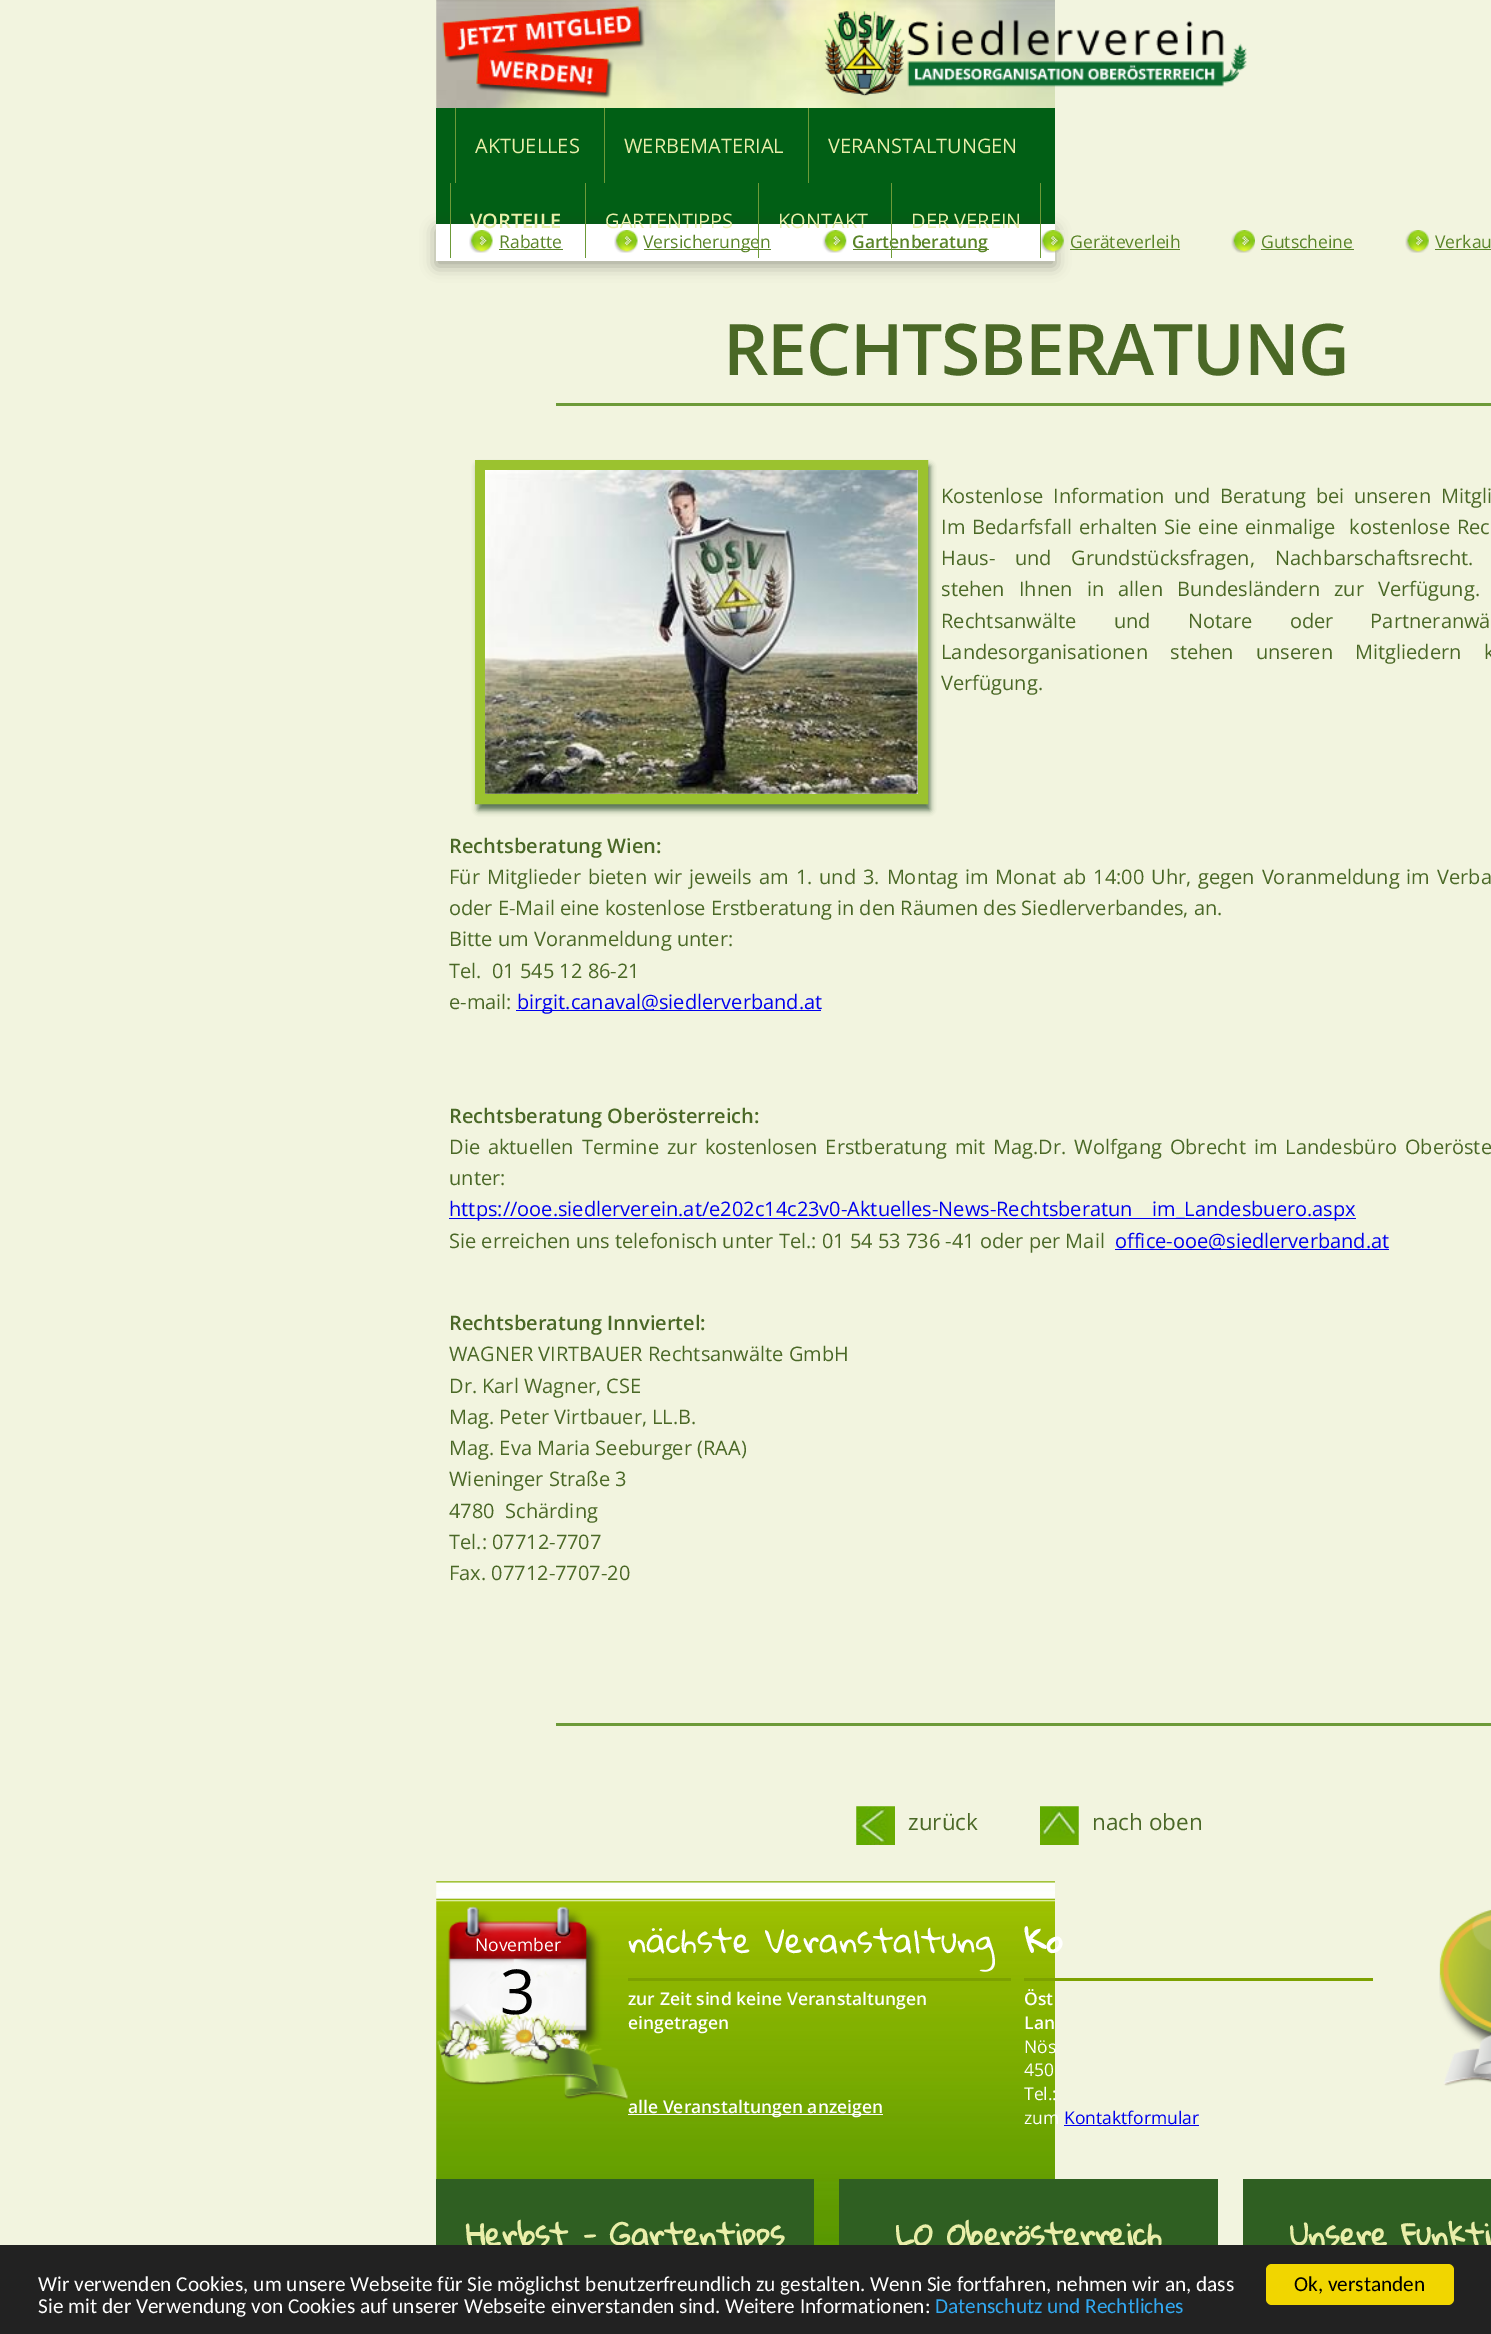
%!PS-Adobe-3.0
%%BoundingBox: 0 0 1491 2334
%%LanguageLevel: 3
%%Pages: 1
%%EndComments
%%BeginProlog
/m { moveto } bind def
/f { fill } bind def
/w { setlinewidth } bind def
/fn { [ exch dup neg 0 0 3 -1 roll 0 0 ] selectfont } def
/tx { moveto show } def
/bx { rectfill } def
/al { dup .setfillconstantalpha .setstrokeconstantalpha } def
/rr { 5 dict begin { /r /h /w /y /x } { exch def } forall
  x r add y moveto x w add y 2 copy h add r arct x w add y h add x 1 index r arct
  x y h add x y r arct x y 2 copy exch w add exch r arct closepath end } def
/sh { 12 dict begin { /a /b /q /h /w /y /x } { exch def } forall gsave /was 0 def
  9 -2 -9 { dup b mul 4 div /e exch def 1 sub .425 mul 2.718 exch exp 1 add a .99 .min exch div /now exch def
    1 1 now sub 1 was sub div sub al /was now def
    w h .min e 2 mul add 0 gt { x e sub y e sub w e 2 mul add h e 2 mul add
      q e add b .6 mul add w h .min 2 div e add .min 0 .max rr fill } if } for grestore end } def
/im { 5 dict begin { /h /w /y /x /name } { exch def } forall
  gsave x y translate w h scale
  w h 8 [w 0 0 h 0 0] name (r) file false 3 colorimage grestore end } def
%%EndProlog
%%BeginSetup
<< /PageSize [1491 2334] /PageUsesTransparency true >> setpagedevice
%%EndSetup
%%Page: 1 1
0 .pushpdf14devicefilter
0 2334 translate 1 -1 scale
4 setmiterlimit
0.949 0.957 0.875 setrgbcolor
0 0 1491 2334 bx
(image0.raw) 436 0 619 108 im
(image1.raw) 442 6 203 93 im
(image2.raw) 823 11 424 86 im
0.004 0.373 0.082 setrgbcolor
436 108 619 116 bx
0.427 0.604 0.22 setrgbcolor
455 108 1 75 bx
/OpenSans-Regular 20 fn
0.914 0.933 0.663 setrgbcolor
(AKTUELLES) 475 153 tx
0.427 0.604 0.22 setrgbcolor
604 108 1 75 bx
0.914 0.933 0.663 setrgbcolor
(WERBEMATERIAL) 624 153 tx
0.427 0.604 0.22 setrgbcolor
808 108 1 75 bx
0.914 0.933 0.663 setrgbcolor
(VERANSTALTUNGEN) 828 153 tx
0.196 setgray
436 229 619 37 0 7.5 0.4 sh
1 setgray
436 224 619 37 bx
0.427 0.604 0.22 setrgbcolor
450 183 1 75 bx
/OpenSans-SemiBold 20 fn
0.914 0.933 0.663 setrgbcolor
(VORTEILE) 470 228 tx
0.427 0.604 0.22 setrgbcolor
585 183 1 75 bx
/OpenSans-Regular 20 fn
0.914 0.933 0.663 setrgbcolor
(GARTENTIPPS) 605 228 tx
0.349 0.518 0.153 setrgbcolor
644 249 127 1 bx
/OpenSans-Regular 17.5 fn
(Versicherungen) 643 248 tx
0.427 0.604 0.22 setrgbcolor
758 183 1 75 bx
/OpenSans-Regular 20 fn
0.914 0.933 0.663 setrgbcolor
(KONTAKT) 778 228 tx
0.427 0.604 0.22 setrgbcolor
1040 183 1 75 bx
0.349 0.518 0.153 setrgbcolor
853 249 136 1 bx
/OpenSans-SemiBold 17.5 fn
(Gartenberatung) 852 248 tx
0.427 0.604 0.22 setrgbcolor
891 183 1 75 bx
/OpenSans-Regular 20 fn
0.914 0.933 0.663 setrgbcolor
(DER VEREIN) 911 228 tx
(image3.raw) 469 230 24 23 im
/OpenSans-Regular 17.5 fn
0.349 0.518 0.153 setrgbcolor
(Rabatte) 499 248 tx
499 249 64 1 bx
(image3.raw) 614 230 24 23 im
(image4.raw) 822 230 25 23 im
(image5.raw) 1041 230 23 23 im
(Geräteverleih) 1070 248 tx
1070 249 110 1 bx
(image6.raw) 1231 230 24 23 im
(Gutscheine) 1261 248 tx
1261 249 93 1 bx
(image7.raw) 1405 230 24 23 im
(Verkau) 1435 248 tx
1435 249 56 1 bx
/OpenSans-SemiBold 71.25 fn
0.29 0.408 0.149 setrgbcolor
723 375 m -1.25 0 (RECHTSBERATUNG) ashow
0.427 0.604 0.22 setrgbcolor
556 403 935 3 bx
0.31 0.42 0.302 setrgbcolor
478 466 452 344 0 3 0.95 sh
0.608 0.761 0.184 setrgbcolor
10 w
480 465 443 334 rectstroke
(image8.raw) 485 470 433 324 im
/OpenSans-Regular 20 fn
0.29 0.408 0.149 setrgbcolor
941 503 m 4.5 0 32 (Kostenlose Information und Beratung bei unseren Mitgli) widthshow
941 534 m 1.75 0 32 (Im Bedarfsfall erhalten Sie eine einmalige  kostenlose Rec) widthshow
941 565 m 14.5 0 32 (Haus- und Grundstücksfragen, Nachbarschaftsrecht.) widthshow
941 596 m 9 0 32 (stehen Ihnen in allen Bundesländern zur Verfügung.) widthshow
941 628 m 32 0 32 (Rechtsanwälte und Notare oder Partneranwä) widthshow
941 659 m 17 0 32 (Landesorganisationen stehen unseren Mitgliedern k) widthshow
(Verfügung.) 941 690 tx
/OpenSans-SemiBold 20 fn
(Rechtsberatung Wien:) 449 853 tx
/OpenSans-Regular 20 fn
449 884 m 1.75 0 32 (Für Mitglieder bieten wir jeweils am 1. und 3. Montag im Monat ab 14:00 Uhr, gegen Voranmeldung im Verba) widthshow
(oder E-Mail eine kostenlose Erstberatung in den Räumen des Siedlerverbandes, an.) 449 915 tx
(Bitte um Voranmeldung unter:) 449 946 tx
(Tel.  01 545 12 86-21) 449 978 tx
(e-mail:) 449 1009 tx
0 0 0.933 setrgbcolor
516 1010 305 1 bx
(birgit.canaval@siedlerverband.at) 517 1009 tx
/OpenSans-SemiBold 20 fn
0.29 0.408 0.149 setrgbcolor
(Rechtsberatung Oberösterreich:) 449 1123 tx
/OpenSans-Regular 20 fn
449 1154 m 2.75 0 32 (Die aktuellen Termine zur kostenlosen Erstberatung mit Mag.Dr. Wolfgang Obrecht im Landesbüro Oberöste) widthshow
(unter:) 449 1185 tx
0 0 0.933 setrgbcolor
449 1218 907 1 bx
(https://ooe.siedlerverein.at/e202c14c23v0-Aktuelles-News-Rechtsberatun) 449 1216 tx
(im_Landesbuero.aspx) 1152 1216 tx
0.29 0.408 0.149 setrgbcolor
(Sie erreichen uns telefonisch unter Tel.: 01 54 53 736 -41 oder per Mail) 449 1248 tx
0 0 0.933 setrgbcolor
1115 1249 274 1 bx
(office-ooe@siedlerverband.at) 1115 1248 tx
/OpenSans-SemiBold 20 fn
0.29 0.408 0.149 setrgbcolor
(Rechtsberatung Innviertel:) 449 1330 tx
/OpenSans-Regular 20 fn
(WAGNER VIRTBAUER Rechtsanwälte GmbH) 449 1361 tx
(Dr. Karl Wagner, CSE) 449 1393 tx
(Mag. Peter Virtbauer, LL.B.) 449 1424 tx
(Mag. Eva Maria Seeburger \(RAA\)) 449 1455 tx
(Wieninger Straße 3) 449 1486 tx
(4780  Schärding) 449 1518 tx
(Tel.: 07712-7707) 449 1549 tx
(Fax. 07712-7707-20) 449 1580 tx
0.427 0.604 0.22 setrgbcolor
556 1723 935 3 bx
(image9.raw) 856 1806 39 39 im
/OpenSans-Regular 22.5 fn
0.29 0.408 0.149 setrgbcolor
(zurück) 908 1830 tx
(image10.raw) 1040 1806 39 39 im
(nach oben) 1092 1830 tx
(image11.raw) 436 1881 619 364 im
(image12.raw) 437 1906 191 194 im
/OpenSans-Regular 17.5 fn
1 setgray
(November) 475 1951 tx
/OpenSans-Regular 62 fn
0 setgray
(3) 500 2014 tx
/GloriaHallelujah-Regular 32.5 fn
1 setgray
(nächste Veranstaltung) 628 1953 tx
0.49 0.631 0 setrgbcolor
628 1978 383 3 bx
/OpenSans-SemiBold 17.5 fn
1 setgray
(zur Zeit sind keine Veranstaltungen) 628 2005 tx
(eingetragen) 628 2029 tx
628 2114 255 1 bx
(alle Veranstaltungen anzeigen) 628 2113 tx
/GloriaHallelujah-Bold 32.5 fn
(Ko) 1024 1953 tx
0.49 0.631 0 setrgbcolor
1024 1978 349 3 bx
/OpenSans-SemiBold 17.5 fn
1 setgray
(Öst) 1024 2005 tx
(Lan) 1024 2029 tx
/OpenSans-Regular 17.5 fn
(Nös) 1024 2053 tx
(450) 1024 2076 tx
(Tel.:) 1024 2100 tx
(zum) 1024 2124 tx
0 0 0.933 setrgbcolor
(Kontaktformular) 1064 2124 tx
1064 2125 135 1 bx
(image13.raw) 1439 1909 52 177 im
0.184 0.373 0.133 setrgbcolor
436 2179 378 66 bx
/GloriaHallelujah-Bold 30 fn
0.914 0.933 0.663 setrgbcolor
(Herbst - Gartentipps) 466 2246 tx
0.184 0.373 0.133 setrgbcolor
839 2179 379 66 bx
0.914 0.933 0.663 setrgbcolor
(LO Oberösterreich) 896 2246 tx
0.184 0.373 0.133 setrgbcolor
1243 2179 248 66 bx
0.914 0.933 0.663 setrgbcolor
(Unsere Funkti) 1290 2246 tx
0.133 setgray
0 2245 1491 89 bx
/Carlito-Regular 21.25 fn
1 setgray
(Wir verwenden Cookies, um unsere Webseite für Sie möglichst benutzerfreundlich zu gestalten. Wenn Sie fortfahren, nehmen wir an, dass) 38 2291 tx
(Sie mit der Verwendung von Cookies auf unserer Webseite einverstanden sind. Weitere Informationen:) 38 2313 tx
0.192 0.659 0.941 setrgbcolor
(Datenschutz und Rechtliches) 935 2313 tx
0.945 0.839 0 setrgbcolor
1266 2264 188 41 6 rr f
0 setgray
(Ok, verstanden) 1294 2291 tx
.poppdf14devicefilter showpage
%%EOF
